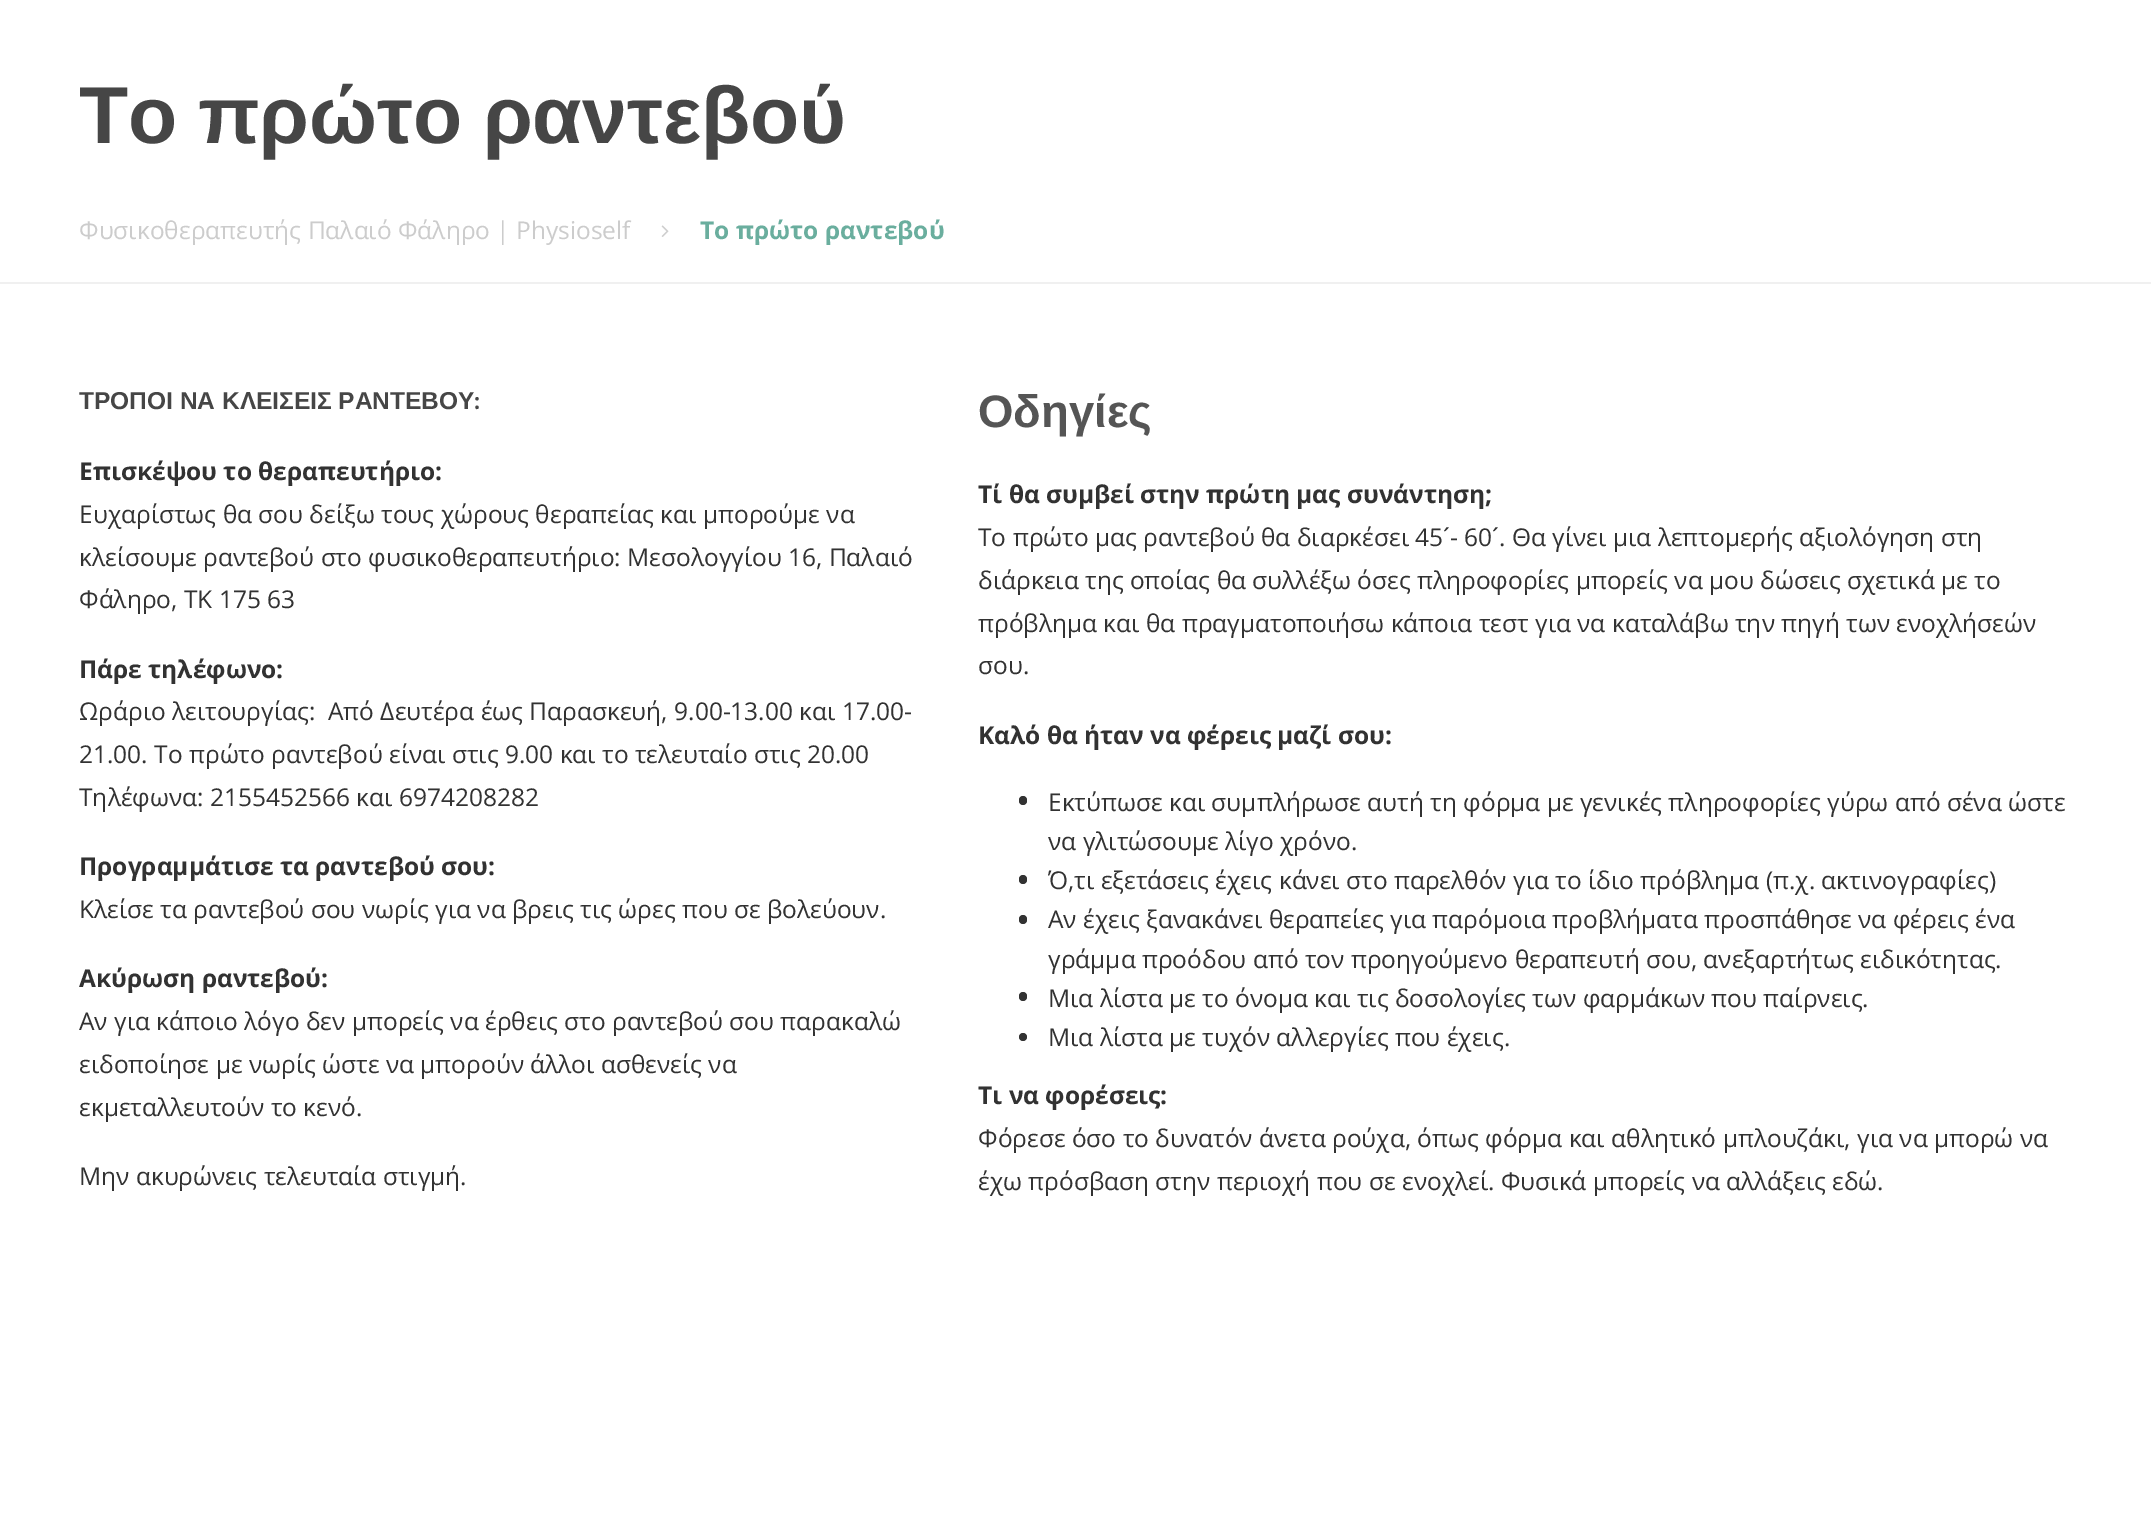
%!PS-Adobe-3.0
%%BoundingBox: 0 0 2151 1518
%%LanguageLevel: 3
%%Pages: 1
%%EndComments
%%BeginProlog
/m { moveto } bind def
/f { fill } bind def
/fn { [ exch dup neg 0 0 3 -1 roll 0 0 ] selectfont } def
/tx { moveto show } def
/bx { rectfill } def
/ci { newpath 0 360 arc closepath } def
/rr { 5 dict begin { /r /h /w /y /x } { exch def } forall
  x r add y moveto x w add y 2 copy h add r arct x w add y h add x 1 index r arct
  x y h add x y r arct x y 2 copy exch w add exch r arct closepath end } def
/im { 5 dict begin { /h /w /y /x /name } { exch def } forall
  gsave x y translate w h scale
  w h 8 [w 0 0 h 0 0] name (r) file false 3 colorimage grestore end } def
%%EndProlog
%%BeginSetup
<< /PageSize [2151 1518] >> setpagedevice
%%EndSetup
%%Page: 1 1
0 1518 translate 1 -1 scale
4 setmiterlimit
1 setgray
0 0 2151 1518 bx
/LiberationSans-Bold 80.5 fn
0.275 setgray
79 143 m -2 0 32 (To πρώτο ραντεβού) widthshow
0.941 setgray
0 282 2151 2 bx
/OpenSans-Regular 24.5 fn
0.8 setgray
(Φυσικοθεραπευτής Παλαιό Φάληρο | Physioself) 79 239 tx
(image0.raw) 661 225 8 12 im
/OpenSans-Bold 24.5 fn
0.416 0.682 0.62 setrgbcolor
(To πρώτο ραντεβού) 700 239 tx
/LiberationSans-Bold 24.5 fn
0.275 setgray
(ΤΡΟΠΟΙ ΝΑ ΚΛΕΙΣΕΙΣ ΡΑΝΤΕΒΟΥ) 79 409 tx
/Nunito-Bold 24.5 fn
(:) 474 409 tx
/OpenSans-Bold 24.5 fn
0.196 setgray
(Επισκέψου το θεραπευτήριο:) 79 480 tx
/OpenSans-Regular 24.5 fn
(Ευχαρίστως θα σου δείξω τους χώρους θεραπείας και μπορούμε να) 79 523 tx
(κλείσουμε ραντεβού στο φυσικοθεραπευτήριο: Μεσολογγίου 16, Παλαιό) 79 566 tx
(Φάληρο, ΤΚ 175 63) 79 608 tx
/OpenSans-Bold 24.5 fn
(Πάρε τηλέφωνο:) 79 678 tx
/OpenSans-Regular 24.5 fn
(Ωράριο λειτουργίας:  Από Δευτέρα έως Παρασκευή, 9.00-13.00 και 17.00-) 79 720 tx
(21.00. Το πρώτο ραντεβού είναι στις 9.00 και το τελευταίο στις 20.00) 79 763 tx
(Τηλέφωνα: 2155452566 και 6974208282) 79 806 tx
/OpenSans-Bold 24.5 fn
(Προγραμμάτισε τα ραντεβού σου:) 79 875 tx
/OpenSans-Regular 24.5 fn
(Κλείσε τα ραντεβού σου νωρίς για να βρεις τις ώρες που σε βολεύουν.) 79 918 tx
/OpenSans-Bold 24.5 fn
(Ακύρωση ραντεβού:) 79 987 tx
/OpenSans-Regular 24.5 fn
(Αν για κάποιο λόγο δεν μπορείς να έρθεις στο ραντεβού σου παρακαλώ) 79 1030 tx
(ειδοποίησε με νωρίς ώστε να μπορούν άλλοι ασθενείς να) 79 1073 tx
(εκμεταλλευτούν το κενό.) 79 1116 tx
(Μην ακυρώνεις τελευταία στιγμή.) 79 1185 tx
/LiberationSans-Bold 45.5 fn
0.333 setgray
(Οδηγίες) 978 427 tx
/OpenSans-Bold 24.5 fn
0.196 setgray
(Τί θα συμβεί στην πρώτη μας συνάντηση;) 978 503 tx
/OpenSans-Regular 24.5 fn
(Το πρώτο μας ραντεβού θα διαρκέσει 45´- 60´. Θα γίνει μια λεπτομερής αξιολόγηση στη) 978 546 tx
(διάρκεια της οποίας θα συλλέξω όσες πληροφορίες μπορείς να μου δώσεις σχετικά με το) 978 589 tx
(πρόβλημα και θα πραγματοποιήσω κάποια τεστ για να καταλάβω την πηγή των ενοχλήσεών) 978 632 tx
(σου.) 978 674 tx
/OpenSans-Bold 24.5 fn
(Καλό θα ήταν να φέρεις μαζί σου:) 978 744 tx
1019 796 8 9 4 rr f
/OpenSans-Regular 24.5 fn
(Εκτύπωσε και συμπλήρωσε αυτή τη φόρμα με γενικές πληροφορίες γύρω από σένα ώστε) 1048 811 tx
(να γλιτώσουμε λίγο χρόνο.) 1048 850 tx
1019 875 8 9 4 rr f
(Ό,τι εξετάσεις έχεις κάνει στο παρελθόν για το ίδιο πρόβλημα \(π.χ. ακτινογραφίες\)) 1048 889 tx
1019 915 8 9 4 rr f
(Αν έχεις ξανακάνει θεραπείες για παρόμοια προβλήματα προσπάθησε να φέρεις ένα) 1048 928 tx
(γράμμα προόδου από τον προηγούμενο θεραπευτή σου, ανεξαρτήτως ειδικότητας.) 1048 968 tx
1019 992 8 9 4 rr f
(Μια λίστα με το όνομα και τις δοσολογίες των φαρμάκων που παίρνεις.) 1048 1007 tx
1023 1037 4 ci f
(Μια λίστα με τυχόν αλλεργίες που έχεις.) 1048 1046 tx
/OpenSans-Bold 24.5 fn
(Τι να φορέσεις:) 978 1104 tx
/OpenSans-Regular 24.5 fn
(Φόρεσε όσο το δυνατόν άνετα ρούχα, όπως φόρμα και αθλητικό μπλουζάκι, για να μπορώ να) 978 1147 tx
(έχω πρόσβαση στην περιοχή που σε ενοχλεί. Φυσικά μπορείς να αλλάξεις εδώ.) 978 1190 tx
showpage
%%EOF
